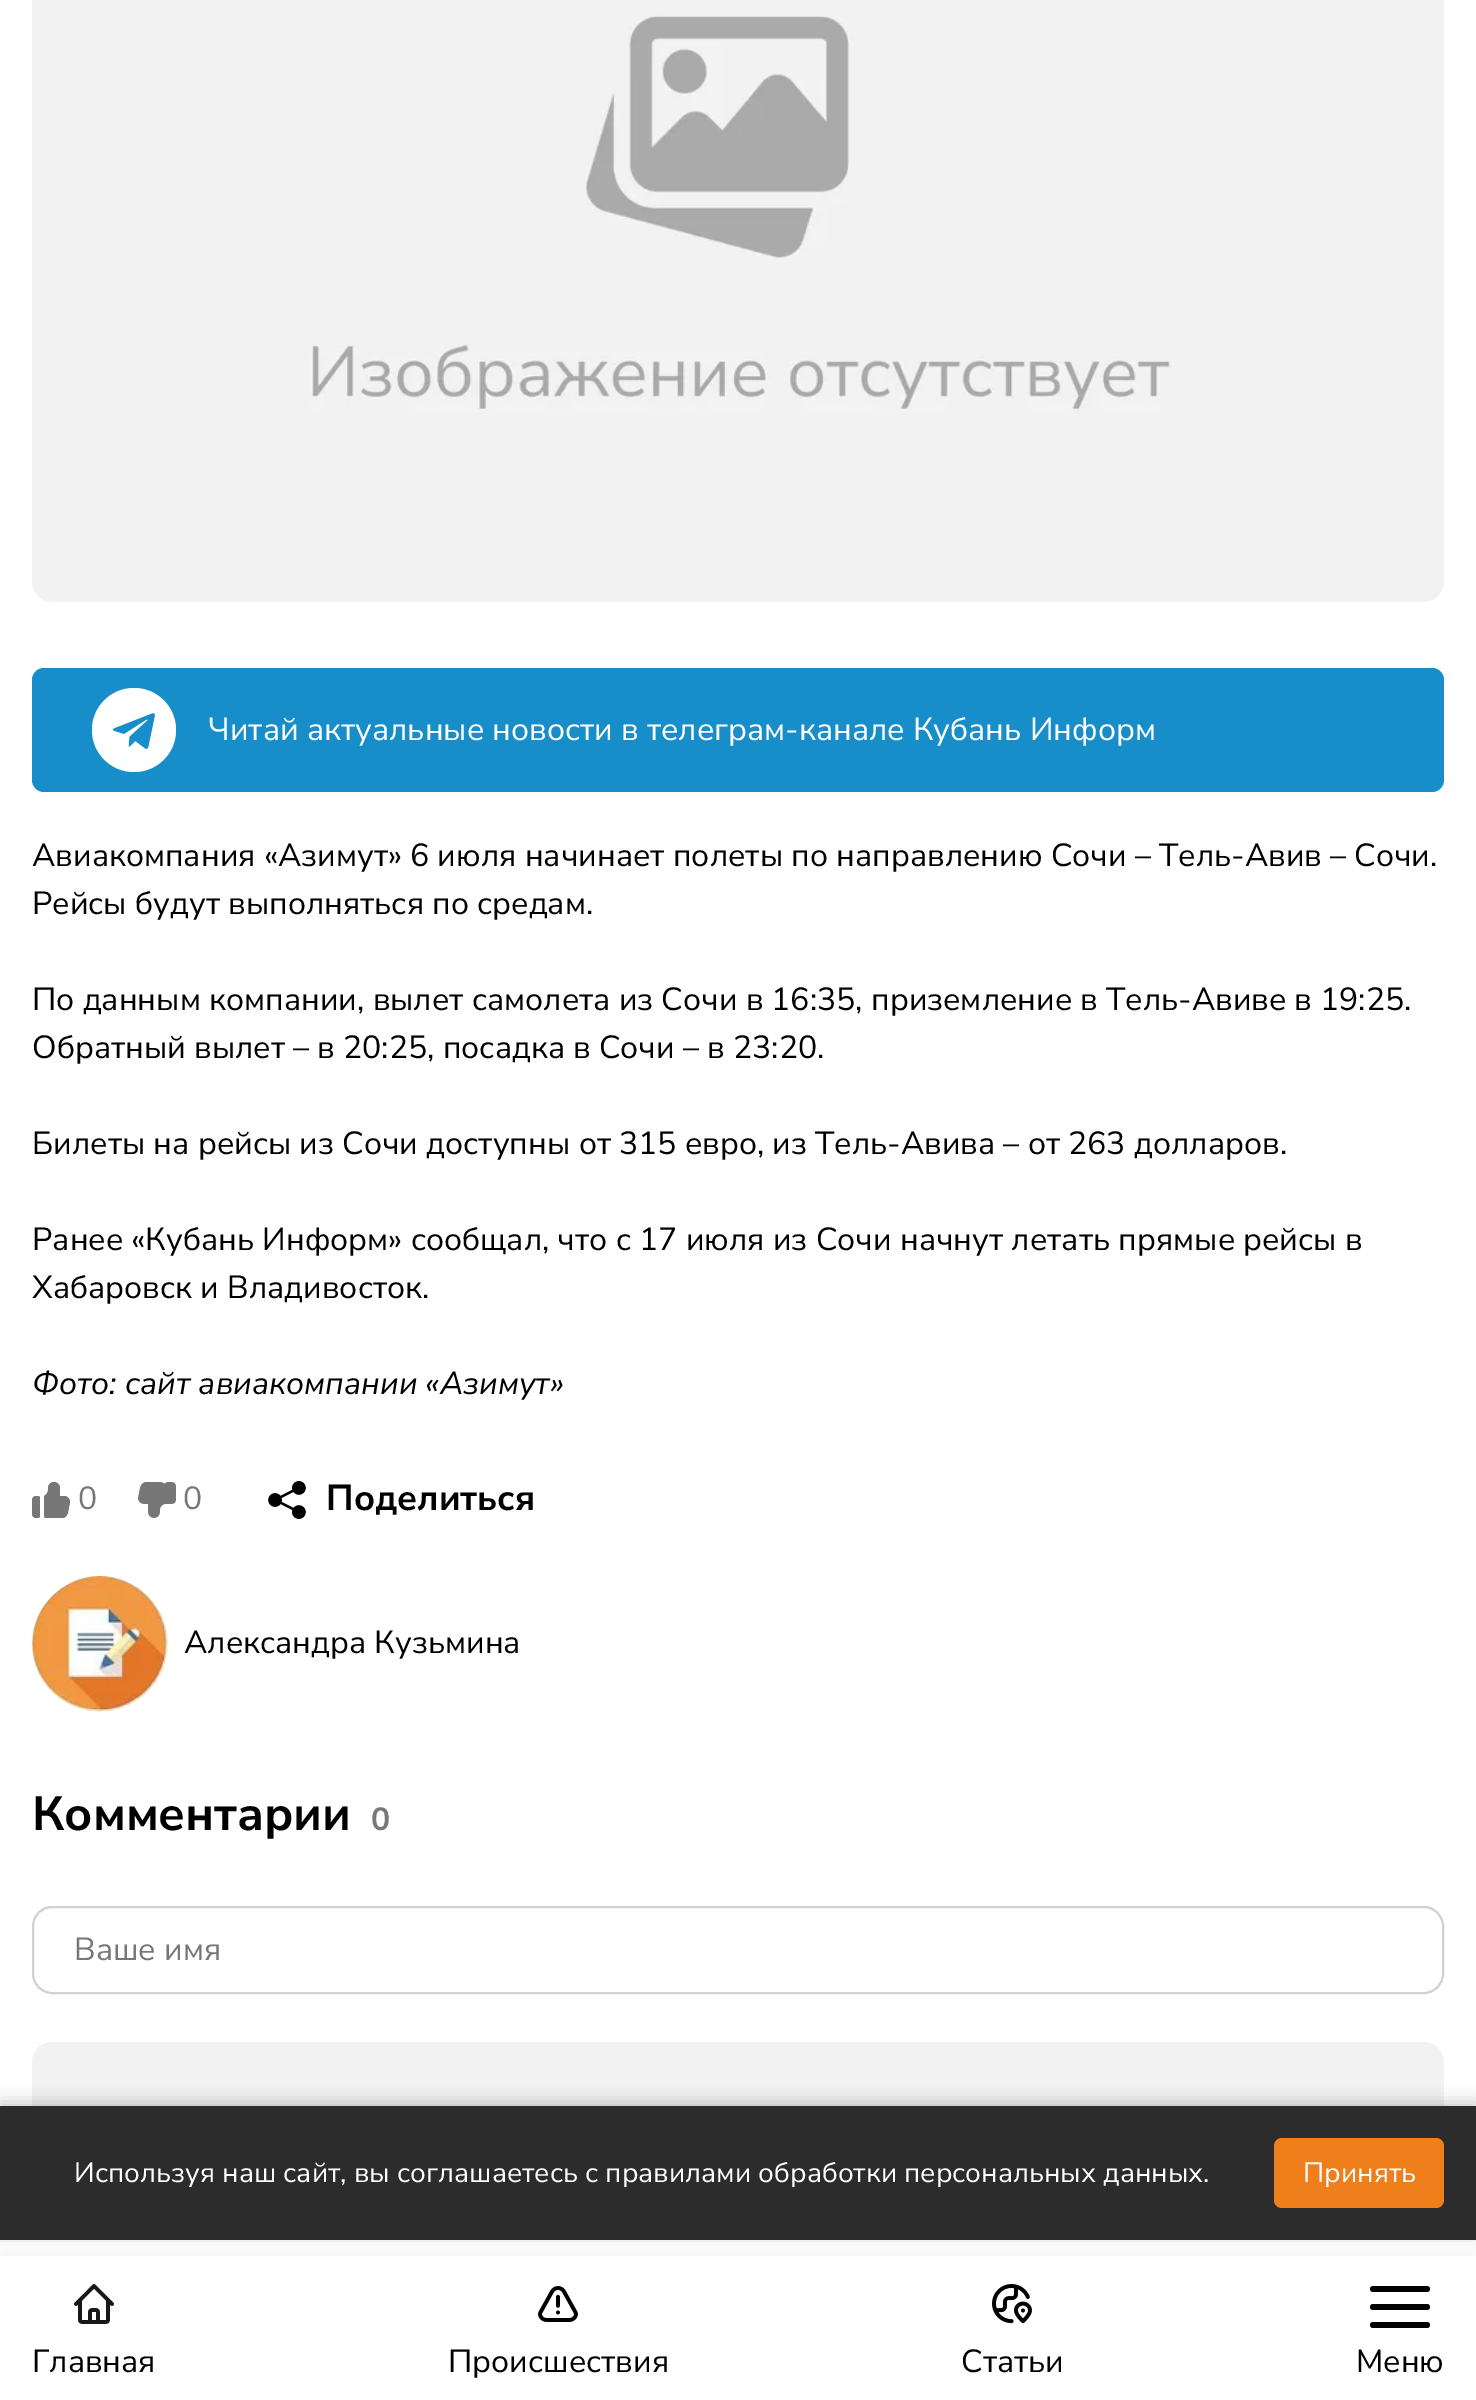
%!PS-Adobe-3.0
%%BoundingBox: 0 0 1476 2400
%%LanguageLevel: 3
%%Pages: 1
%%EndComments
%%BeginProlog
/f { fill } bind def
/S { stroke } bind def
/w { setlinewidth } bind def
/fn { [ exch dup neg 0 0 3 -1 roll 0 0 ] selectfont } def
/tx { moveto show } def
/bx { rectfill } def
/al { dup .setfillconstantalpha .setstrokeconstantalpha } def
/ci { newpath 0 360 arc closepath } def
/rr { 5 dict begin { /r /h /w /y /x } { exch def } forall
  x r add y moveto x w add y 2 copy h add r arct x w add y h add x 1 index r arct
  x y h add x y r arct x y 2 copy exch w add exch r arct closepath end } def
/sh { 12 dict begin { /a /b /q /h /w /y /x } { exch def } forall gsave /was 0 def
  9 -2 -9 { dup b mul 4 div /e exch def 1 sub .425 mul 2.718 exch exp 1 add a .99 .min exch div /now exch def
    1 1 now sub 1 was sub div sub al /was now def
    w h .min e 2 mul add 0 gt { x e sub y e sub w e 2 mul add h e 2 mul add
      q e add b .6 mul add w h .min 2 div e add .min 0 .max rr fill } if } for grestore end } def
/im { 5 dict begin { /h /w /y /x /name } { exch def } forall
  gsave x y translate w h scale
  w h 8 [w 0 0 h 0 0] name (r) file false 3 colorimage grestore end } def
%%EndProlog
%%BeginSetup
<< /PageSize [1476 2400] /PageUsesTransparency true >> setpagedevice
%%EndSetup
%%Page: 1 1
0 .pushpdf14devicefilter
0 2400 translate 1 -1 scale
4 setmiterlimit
1 setgray
0 0 1476 2400 bx
(image0.raw) 32 0 1412 602 im
0.09 0.557 0.788 setrgbcolor
32 668 1412 124 12 rr f
1 setgray
134 730 42 ci f
(image1.raw) 112 713 43 36 im
/NunitoSans-Regular 32 fn
(Читай актуальные новости в телеграм-канале Кубань Информ) 208 740 tx
0 setgray
(Авиакомпания «Азимут» 6 июля начинает полеты по направлению Сочи – Тель-Авив – Сочи.) 32 866 tx
(Рейсы будут выполняться по средам.) 32 914 tx
(По данным компании, вылет самолета из Сочи в 16:35, приземление в Тель-Авиве в 19:25.) 32 1010 tx
(Обратный вылет – в 20:25, посадка в Сочи – в 23:20.) 32 1058 tx
(Билеты на рейсы из Сочи доступны от 315 евро, из Тель-Авива – от 263 долларов.) 32 1154 tx
(Ранее «Кубань Информ» сообщал, что с 17 июля из Сочи начнут летать прямые рейсы в) 32 1250 tx
(Хабаровск и Владивосток.) 32 1298 tx
/NunitoSans-Italic 32 fn
(Фото: сайт авиакомпании «Азимут») 32 1394 tx
(image2.raw) 32 1482 38 36 im
/NunitoSans-Regular 32 fn
0.467 setgray
(0) 78 1509 tx
(image3.raw) 138 1482 38 36 im
(0) 183 1509 tx
(image4.raw) 268 1481 38 38 im
/NunitoSans-Bold 36 fn
0 setgray
(Поделиться) 326 1510 tx
(image5.raw) 32 1576 136 136 im
/NunitoSans-Regular 32 fn
(Александра Кузьмина) 184 1653 tx
/NunitoSans-Bold 48 fn
(Комментарии) 32 1830 tx
/NunitoSans-Bold 32 fn
0.467 setgray
(0) 371 1830 tx
0.82 setgray
2 w
33 1907 1410 86 19 rr S
/NunitoSans-Regular 32 fn
0.467 setgray
(Ваше имя) 74 1960 tx
0.953 0.949 0.953 setrgbcolor
32 2042 1412 188 20 rr f
0 setgray
0 2102 1476 134 0 8 0.2 sh
0.173 setgray
0 2106 1476 134 bx
/NunitoSans-Regular 28 fn
1 setgray
(Используя наш сайт, вы соглашаетесь с правилами обработки персональных данных.) 74 2182 tx
0.933 0.498 0.102 setrgbcolor
1274 2138 170 70 8 rr f
1 setgray
(Принять) 1303 2182 tx
0 setgray
0 2252 1476 144 0 4 0.04 sh
1 setgray
0 2256 1476 143 bx
(image6.raw) 74 2284 40 40 im
/NunitoSans-Regular 32 fn
0 setgray
(Главная) 32 2372 tx
(image7.raw) 538 2286 40 36 im
(Происшествия) 448 2372 tx
(image8.raw) 992 2284 40 40 im
(Статьи) 961 2372 tx
1370 2304 60 6 3 rr f
1370 2286 60 6 3 rr f
1370 2322 60 6 3 rr f
(Меню) 1356 2372 tx
.poppdf14devicefilter showpage
%%EOF
